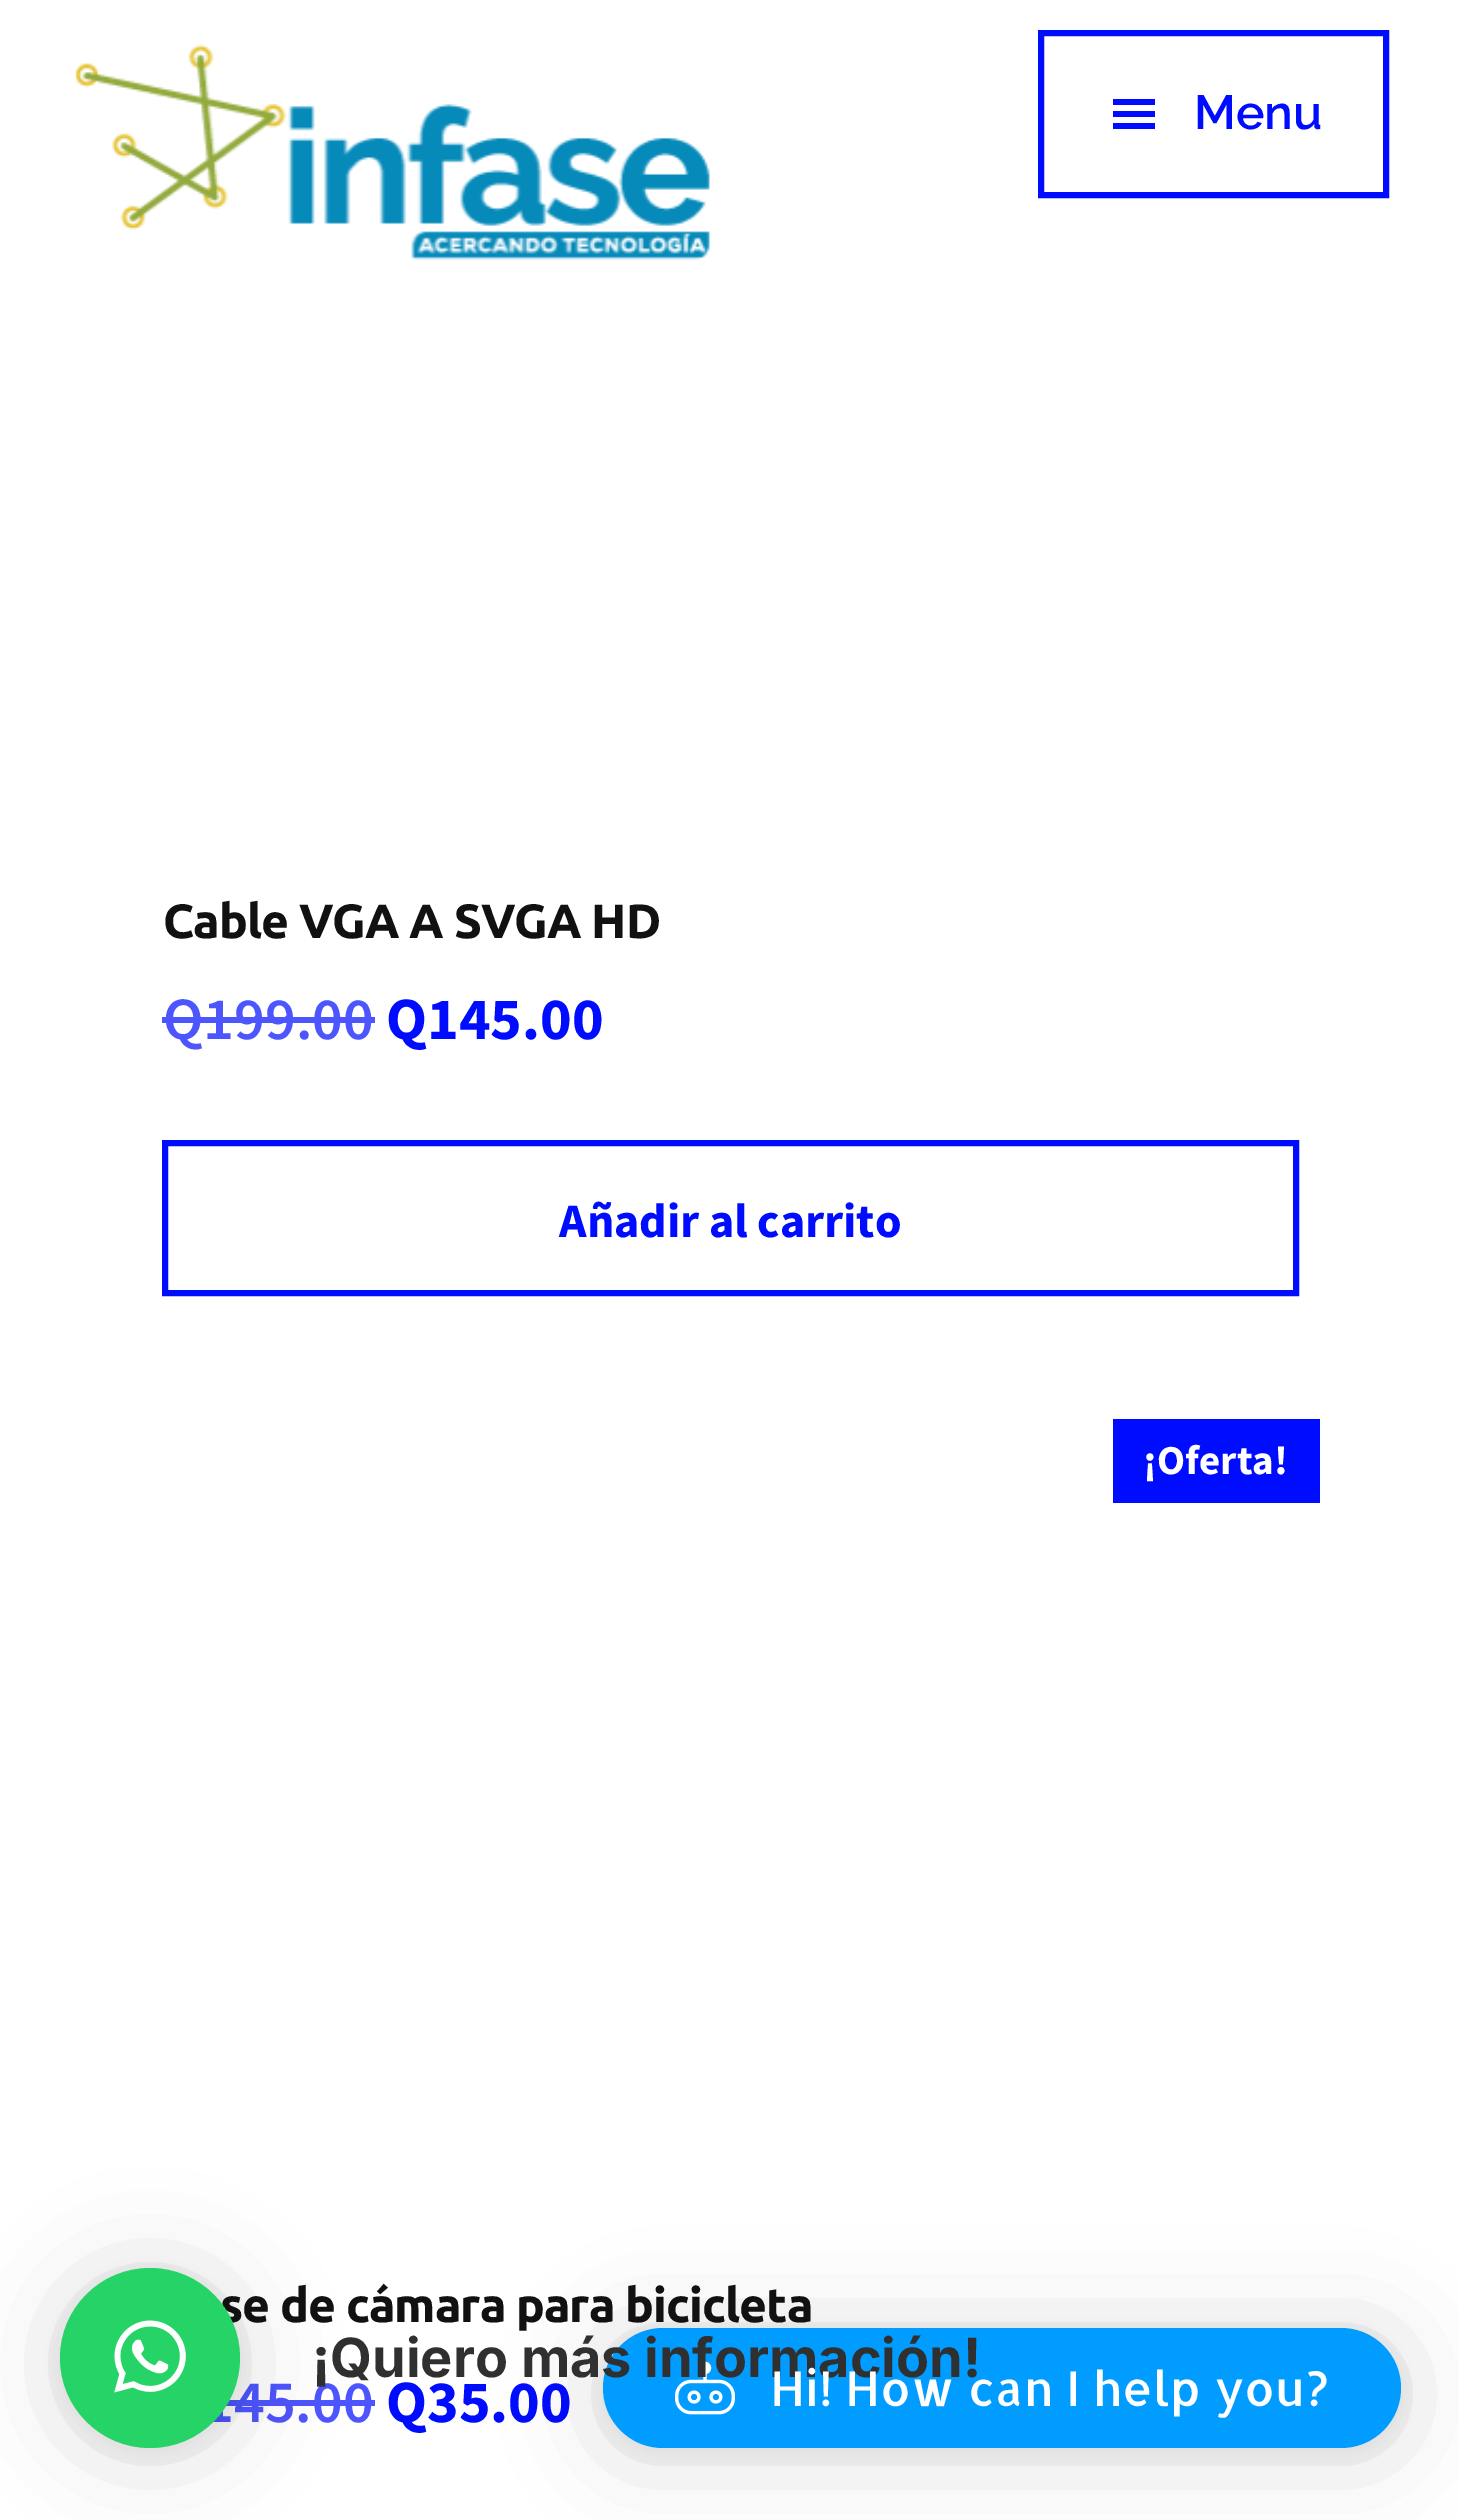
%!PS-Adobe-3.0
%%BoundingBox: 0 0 1459 2520
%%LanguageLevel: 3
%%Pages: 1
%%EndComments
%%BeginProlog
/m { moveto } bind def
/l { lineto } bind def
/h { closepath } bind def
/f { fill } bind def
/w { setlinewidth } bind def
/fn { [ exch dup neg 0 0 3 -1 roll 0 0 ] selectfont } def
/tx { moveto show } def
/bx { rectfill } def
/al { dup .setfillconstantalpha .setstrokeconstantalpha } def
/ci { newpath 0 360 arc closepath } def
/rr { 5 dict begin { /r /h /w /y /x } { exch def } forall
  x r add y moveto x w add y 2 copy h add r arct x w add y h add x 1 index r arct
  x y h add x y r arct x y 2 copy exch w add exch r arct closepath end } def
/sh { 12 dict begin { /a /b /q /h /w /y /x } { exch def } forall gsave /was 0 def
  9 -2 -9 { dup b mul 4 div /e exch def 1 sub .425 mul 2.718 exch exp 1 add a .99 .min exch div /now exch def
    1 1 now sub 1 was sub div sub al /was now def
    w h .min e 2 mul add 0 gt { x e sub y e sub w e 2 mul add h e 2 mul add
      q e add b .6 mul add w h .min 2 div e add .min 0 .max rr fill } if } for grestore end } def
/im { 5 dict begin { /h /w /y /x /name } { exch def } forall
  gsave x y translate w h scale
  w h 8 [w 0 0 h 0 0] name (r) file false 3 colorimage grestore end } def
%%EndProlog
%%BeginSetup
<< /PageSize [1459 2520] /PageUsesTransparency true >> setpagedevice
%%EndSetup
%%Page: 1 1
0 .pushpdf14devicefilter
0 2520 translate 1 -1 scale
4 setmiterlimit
1 setgray
0 0 1459 2520 bx
(image0.raw) 75 44 635 216 im
0 0.047 1 setrgbcolor
6 w
1041 33 345 162 rectstroke
1113 129 m 1155 129 l 1155 123 l 1113 123 l h 1113 99 m 1113 105 l 1155 105 l 1155 99 l h 1113 117 m 1155 117 l 1155 111 l 1113 111 l h f
/Raleway-SemiBold 48 fn
(Menu) 1194 129 tx
/Ubuntu-Bold 48 fn
0.067 setgray
163 938 m -0.95 0 (Cable VGA A SVGA HD) ashow
/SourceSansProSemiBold-SemiBold 60 fn
0.302 0.333 1 setrgbcolor
(Q199.00) 163 1039 tx
162 1017 213 6 bx
/SourceSansPro-Bold 60 fn
0 0.047 1 setrgbcolor
(Q145.00) 386 1039 tx
165 1143 1131 150 rectstroke
/SourceSansPro-Bold 48 fn
(Añadir al carrito) 559 1237 tx
1113 1419 207 84 bx
/SourceSansPro-Bold 41 fn
1 setgray
(¡Oferta!) 1143 1474 tx
/Ubuntu-Bold 48 fn
0.067 setgray
220 2322 m -0.95 0 (se de cámara para bicicleta) ashow
/SourceSansProSemiBold-SemiBold 60 fn
0.302 0.333 1 setrgbcolor
(145.00) 203 2422 tx
226 2400 149 6 bx
/SourceSansPro-Bold 60 fn
0 0.047 1 setrgbcolor
(Q35.00) 386 2422 tx
0 setgray
60 2274 180 180 90 48 0.16 sh
60 2271 180 180 90 9 0.06 sh
0.145 0.827 0.4 setrgbcolor
150 2358 90 ci f
(image1.raw) 114 2320 72 73 im
0 setgray
603 2334 798 120 60 48 0.16 sh
603 2331 798 120 60 9 0.06 sh
0 0.612 1 setrgbcolor
603 2328 798 120 60 rr f
(image2.raw) 675 2361 60 54 im
/Inter-Bold 54 fn
0.188 setgray
(¡Quiero más información!) 312 2377 tx
/Allerta-Regular 48 fn
1 setgray
(Hi! How can I help you?) 770 2406 tx
.poppdf14devicefilter showpage
%%EOF
